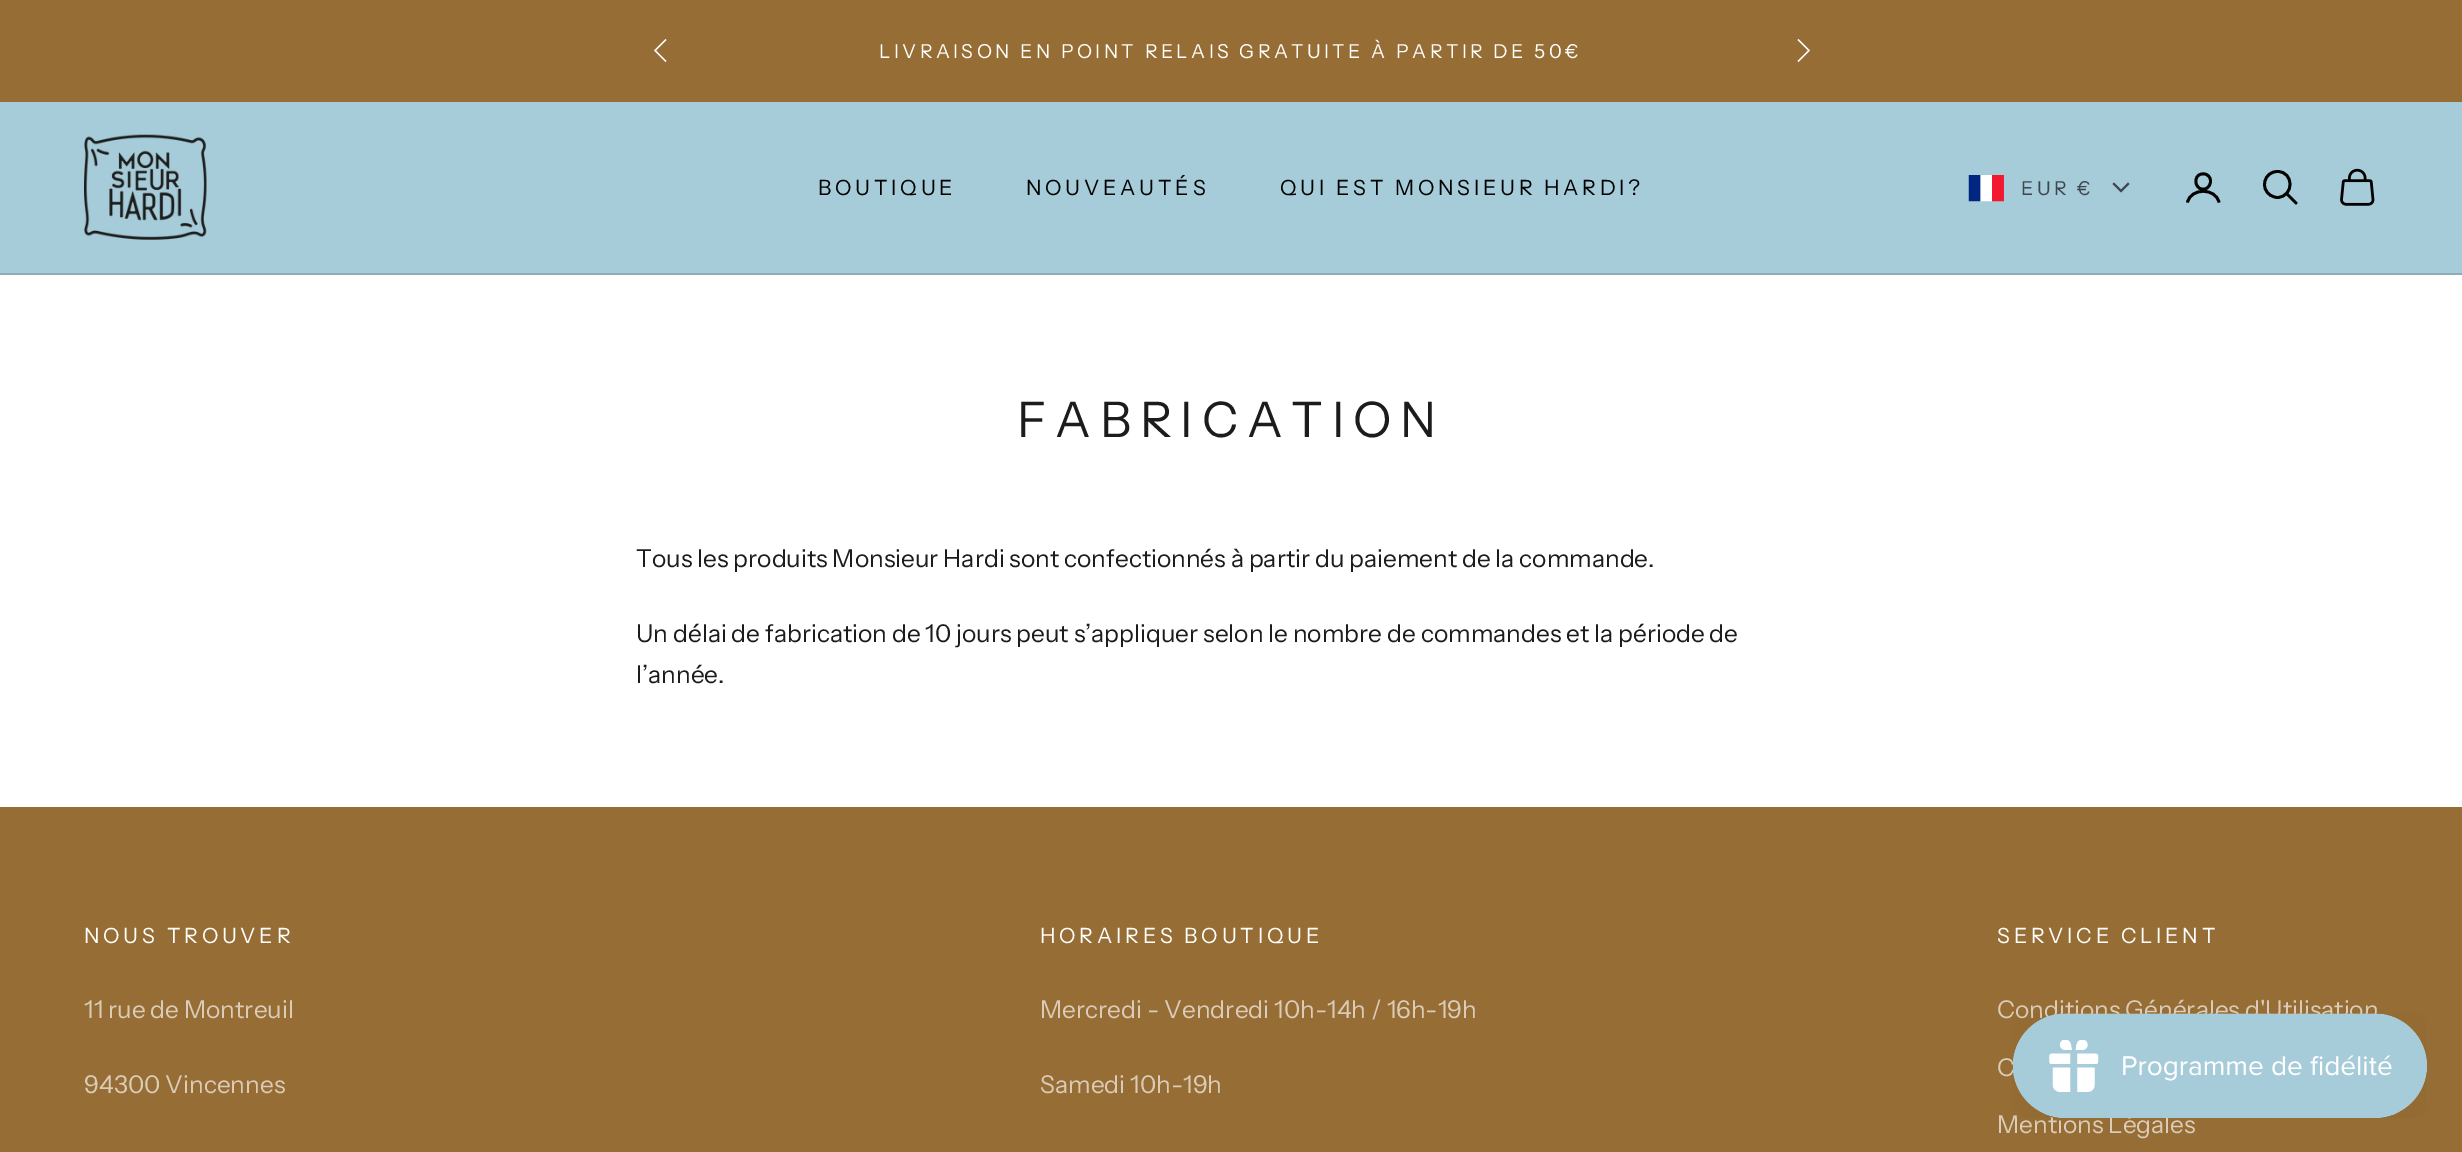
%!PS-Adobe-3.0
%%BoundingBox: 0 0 2462 1152
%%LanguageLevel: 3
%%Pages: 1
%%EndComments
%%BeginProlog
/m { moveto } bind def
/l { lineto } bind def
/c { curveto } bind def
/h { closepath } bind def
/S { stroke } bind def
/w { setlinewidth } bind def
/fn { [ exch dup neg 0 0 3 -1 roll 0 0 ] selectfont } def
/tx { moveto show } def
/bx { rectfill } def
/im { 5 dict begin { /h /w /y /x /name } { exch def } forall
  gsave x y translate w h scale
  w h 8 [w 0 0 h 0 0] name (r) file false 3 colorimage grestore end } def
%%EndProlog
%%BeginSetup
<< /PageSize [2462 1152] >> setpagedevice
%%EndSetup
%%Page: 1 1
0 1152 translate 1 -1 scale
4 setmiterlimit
1 setgray
0 0 2462 1152 bx
0.588 0.427 0.204 setrgbcolor
0 0 2462 102 bx
1 setgray
1.3 w
2 setlinecap
665.5 40 m 655 50.5 l 665.5 61 l S
/InstrumentSans-Regular 19.25 fn
879 58 m 3.45 0 (LIVRAISON EN POINT RELAIS GRATUITE À PARTIR DE 50€) ashow
1798.5 61 m 1809 50.5 l 1798.5 40 l S
0.651 0.796 0.851 setrgbcolor
0 102 2462 171 bx
0.553 0.678 0.725 setrgbcolor
0 273 2462 2 bx
(image0.raw) 84 134 123 106 im
/InstrumentSans-Regular 21 fn
0.008 0.004 0.004 setrgbcolor
818 195 m 3.75 0 (BOUTIQUE) ashow
1026 195 m 3.75 0 (NOUVEAUTÉS) ashow
1280 195 m 3.75 0 (QUI EST MONSIEUR HARDI?) ashow
(image1.raw) 1968 175 36 27 im
/InstrumentSans-Regular 19.25 fn
0.231 0.282 0.302 setrgbcolor
2021 195 m 3.45 0 (EUR €) ashow
1.8 w
2114 184 m 2121 191 l 2128 184 l S
0.008 0.004 0.004 setrgbcolor
2.8 w
1 setlinecap
1 setlinejoin
2210.5 181.5 m 2209.5 193 2194.5 191 2196 180 c 2197 171 2211 172 2210.5 181.5 c h S
0 setlinecap
0 setlinejoin
2187.5 202.5 m 2190.5 187.5 2216 187.5 2219 202.5 c S
2277.5 171.5 m 2264 171.5 2259.5 189 2271 195.5 c 2273 196.5 2275 197.5 2277.5 197.5 c 2294.5 196.5 2294 171.5 2277.5 171.5 c h S
1 setlinecap
2287 194 m 2296 203 l S
(image2.raw) 2340 168 35 38 im
/InstrumentSans-Regular 49 fn
0.11 setgray
1017 437 m 8.75 0 (FABRICATION) ashow
/InstrumentSans-Regular 24.5 fn
(Tous les produits Monsieur Hardi sont confectionnés à partir du paiement de la commande.) 636 567 tx
(Un délai de fabrication de 10 jours peut s’appliquer selon le nombre de commandes et la période de) 636 642 tx
(l’année.) 636 683 tx
0.588 0.427 0.204 setrgbcolor
0 807 2462 345 bx
/InstrumentSans-Regular 21 fn
1 setgray
84 943 m 3.75 0 (NOUS TROUVER) ashow
/InstrumentSans-Regular 24.5 fn
0.855 0.8 0.722 setrgbcolor
(11 rue de Montreuil) 84 1018 tx
(94300 Vincennes) 84 1093 tx
/InstrumentSans-Regular 21 fn
1 setgray
1040 943 m 3.75 0 (HORAIRES BOUTIQUE) ashow
/InstrumentSans-Regular 24.5 fn
0.855 0.8 0.722 setrgbcolor
(Mercredi - Vendredi 10h-14h / 16h-19h) 1040 1018 tx
(Samedi 10h-19h) 1040 1093 tx
/InstrumentSans-Regular 21 fn
1 setgray
1997 943 m 3.75 0 (SERVICE CLIENT) ashow
/InstrumentSans-Regular 24.5 fn
0.855 0.8 0.722 setrgbcolor
(Conditions Générales d'Utilisation) 1997 1018 tx
(C) 1997 1076 tx
(Mentions Légales) 1997 1133 tx
(image3.raw) 2012 1013 415 105 im
showpage
%%EOF
